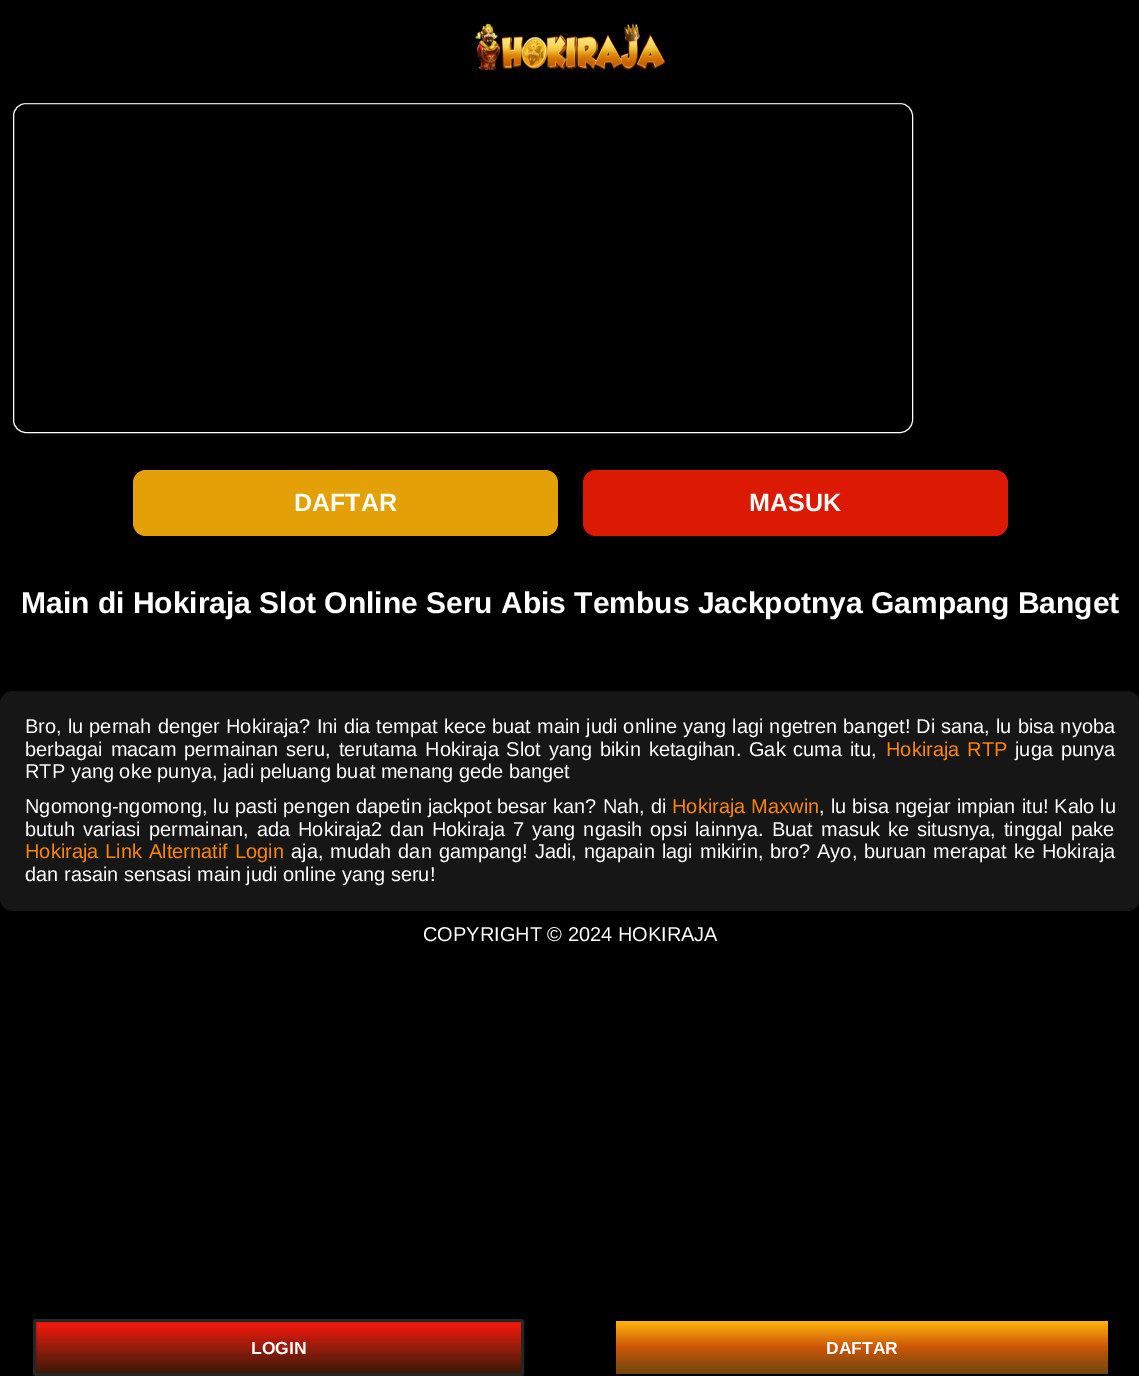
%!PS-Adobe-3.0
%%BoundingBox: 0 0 1139 1376
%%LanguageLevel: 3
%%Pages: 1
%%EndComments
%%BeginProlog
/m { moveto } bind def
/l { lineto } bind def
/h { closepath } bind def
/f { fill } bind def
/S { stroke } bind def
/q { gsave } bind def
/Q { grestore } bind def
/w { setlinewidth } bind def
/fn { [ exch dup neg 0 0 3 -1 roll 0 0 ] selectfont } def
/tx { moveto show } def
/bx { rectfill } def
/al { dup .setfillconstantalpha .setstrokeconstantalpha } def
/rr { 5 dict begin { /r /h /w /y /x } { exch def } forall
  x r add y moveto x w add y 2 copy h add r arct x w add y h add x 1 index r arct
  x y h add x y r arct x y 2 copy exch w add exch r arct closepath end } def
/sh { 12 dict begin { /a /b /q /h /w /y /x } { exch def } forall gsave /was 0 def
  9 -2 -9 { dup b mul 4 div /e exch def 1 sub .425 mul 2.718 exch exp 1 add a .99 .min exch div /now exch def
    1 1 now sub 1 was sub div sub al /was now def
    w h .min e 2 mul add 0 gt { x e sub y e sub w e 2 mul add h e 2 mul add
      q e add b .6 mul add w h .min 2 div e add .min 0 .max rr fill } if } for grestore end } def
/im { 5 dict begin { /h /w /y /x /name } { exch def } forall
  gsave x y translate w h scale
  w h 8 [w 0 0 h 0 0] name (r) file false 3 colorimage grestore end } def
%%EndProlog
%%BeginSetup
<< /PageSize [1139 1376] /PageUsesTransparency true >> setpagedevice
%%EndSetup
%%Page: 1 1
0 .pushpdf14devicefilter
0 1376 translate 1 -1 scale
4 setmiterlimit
0 setgray
0 0 1139 1376 bx
1 setgray
13.5 103.5 899 329 12.5 rr S
q
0 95 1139 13 rectclip
0 setgray
-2 -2 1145 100 0 5 1 sh
Q
(image0.raw) 475 23 190 49 im
0.89 0.631 0.027 setrgbcolor
133 470 425 66 13 rr f
/LiberationSans-Bold 25 fn
1 setgray
(DAFTAR) 294 511 tx
0.863 0.098 0.012 setrgbcolor
583 470 425 66 13 rr f
1 setgray
(MASUK) 749 511 tx
/LiberationSans-Bold 30 fn
(Main di Hokiraja Slot Online Seru Abis Tembus Jackpotnya Gampang Banget) 21 613 tx
0.086 setgray
0 691 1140 220 13 rr f
/LiberationSans-Regular 20 fn
1 setgray
25 733 m 0.5 0 32 (Bro, lu pernah denger Hokiraja? Ini dia tempat kece buat main judi online yang lagi ngetren banget! Di sana, lu bisa nyoba) widthshow
25 756 m 2.25 0 32 (berbagai macam permainan seru, terutama Hokiraja Slot yang bikin ketagihan. Gak cuma itu,) widthshow
0.992 0.522 0.02 setrgbcolor
886 756 m 2.25 0 32 (Hokiraja RTP) widthshow
1 setgray
1015 756 m 2.25 0 32 (juga punya) widthshow
(RTP yang oke punya, jadi peluang buat menang gede banget) 25 778 tx
25 813 m 0.5 0 32 (Ngomong-ngomong, lu pasti pengen dapetin jackpot besar kan? Nah, di) widthshow
0.992 0.522 0.02 setrgbcolor
672 813 m 0.5 0 32 (Hokiraja Maxwin) widthshow
1 setgray
819 813 m 0.5 0 32 (, lu bisa ngejar impian itu! Kalo lu) widthshow
25 836 m 2.4 0 32 (butuh variasi permainan, ada Hokiraja2 dan Hokiraja 7 yang ngasih opsi lainnya. Buat masuk ke situsnya, tinggal pake) widthshow
0.992 0.522 0.02 setrgbcolor
25 858 m 1.4 0 32 (Hokiraja Link Alternatif Login) widthshow
1 setgray
291 858 m 1.4 0 32 (aja, mudah dan gampang! Jadi, ngapain lagi mikirin, bro? Ayo, buruan merapat ke Hokiraja) widthshow
(dan rasain sensasi main judi online yang seru!) 25 881 tx
(COPYRIGHT © 2024 HOKIRAJA) 423 941 tx
q 33 1321 m 524 1321 l 524 1374 l 33 1374 l h clip newpath
<< /ShadingType 2 /ColorSpace /DeviceRGB /Coords [278 1321 278 1374] /Extend [true true] /Function << /FunctionType 3 /Domain [0 1] /Functions [<< /FunctionType 2 /Domain [0 1] /C0 [1 0.094 0.051] /C1 [0.573 0.11 0.047] /N 1 >> << /FunctionType 2 /Domain [0 1] /C0 [0.573 0.11 0.047] /C1 [0.227 0.094 0.031] /N 1 >>] /Bounds [0.51] /Encode [0 1 0 1] >> >> shfill Q
0.149 setgray
3 w
34.5 1320.5 488 54 1 rr S
/LiberationSans-Bold 17.5 fn
1 setgray
(LOGIN) 251 1354 tx
q 616 1321 492 53 2.5 rr clip newpath
<< /ShadingType 2 /ColorSpace /DeviceRGB /Coords [862 1374 862 1321] /Extend [true true] /Function << /FunctionType 3 /Domain [0 1] /Functions [<< /FunctionType 2 /Domain [0 1] /C0 [0.431 0.278 0.047] /C1 [0.804 0.337 0.031] /N 1 >> << /FunctionType 2 /Domain [0 1] /C0 [0.804 0.337 0.031] /C1 [1 0.706 0.047] /N 1 >>] /Bounds [0.51] /Encode [0 1 0 1] >> >> shfill Q
(DAFTAR) 826 1354 tx
.poppdf14devicefilter showpage
%%EOF
